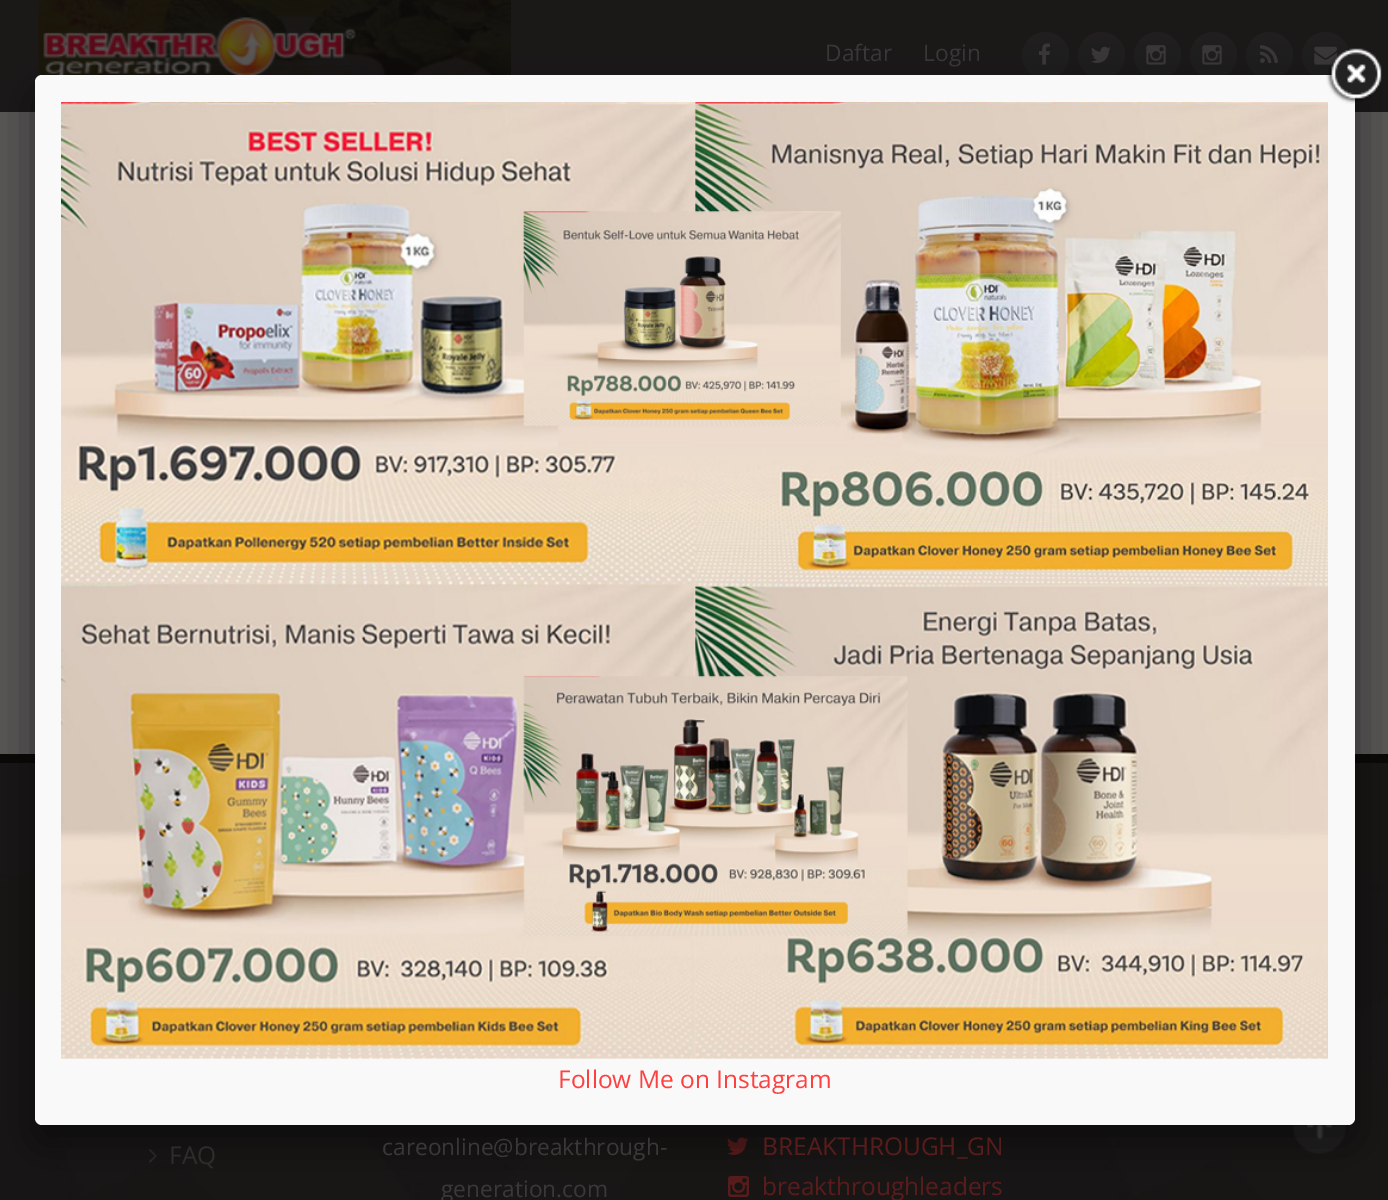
%!PS-Adobe-3.0
%%BoundingBox: 0 0 1388 1200
%%LanguageLevel: 3
%%Pages: 1
%%EndComments
%%BeginProlog
/f { fill } bind def
/fn { [ exch dup neg 0 0 3 -1 roll 0 0 ] selectfont } def
/tx { moveto show } def
/bx { rectfill } def
/al { dup .setfillconstantalpha .setstrokeconstantalpha } def
/ci { newpath 0 360 arc closepath } def
/rr { 5 dict begin { /r /h /w /y /x } { exch def } forall
  x r add y moveto x w add y 2 copy h add r arct x w add y h add x 1 index r arct
  x y h add x y r arct x y 2 copy exch w add exch r arct closepath end } def
/sh { 12 dict begin { /a /b /q /h /w /y /x } { exch def } forall gsave /was 0 def
  9 -2 -9 { dup b mul 4 div /e exch def 1 sub .425 mul 2.718 exch exp 1 add a .99 .min exch div /now exch def
    1 1 now sub 1 was sub div sub al /was now def
    w h .min e 2 mul add 0 gt { x e sub y e sub w e 2 mul add h e 2 mul add
      q e add b .6 mul add w h .min 2 div e add .min 0 .max rr fill } if } for grestore end } def
/im { 5 dict begin { /h /w /y /x /name } { exch def } forall
  gsave x y translate w h scale
  w h 8 [w 0 0 h 0 0] name (r) file false 3 colorimage grestore end } def
%%EndProlog
%%BeginSetup
<< /PageSize [1388 1200] /PageUsesTransparency true >> setpagedevice
%%EndSetup
%%Page: 1 1
0 .pushpdf14devicefilter
0 1200 translate 1 -1 scale
4 setmiterlimit
0.353 0.341 0.341 setrgbcolor
0 0 1388 1200 bx
0.106 0.094 0.094 setrgbcolor
0 0 1388 112 bx
(image0.raw) 38 0 473 77 im
(image1.raw) 43 17 313 58 im
/OpenSans-Regular 22.75 fn
0.227 0.22 0.22 setrgbcolor
(Daftar) 825 61 tx
(Login) 923 61 tx
0.125 0.118 0.118 setrgbcolor
1045.5 55.5 23.5 ci f
(image2.raw) 1039 43 11 22 im
1101.5 55.5 23.5 ci f
(image3.raw) 1091 46 20 17 im
1157.5 55.5 23.5 ci f
(image4.raw) 1146 45 20 20 im
1213.5 55.5 23.5 ci f
(image4.raw) 1202 45 20 20 im
1269.5 55.5 23.5 ci f
(image5.raw) 1260 45 18 18 im
1325.5 55.5 23.5 ci f
(image6.raw) 1314 46 23 19 im
(image9.raw) 0 763 1388 437 im
0.043 0.031 0.031 setrgbcolor
0 754 1388 9 bx
(image10.raw) 149 1149 8 14 im
(image11.raw) 727 1137 22 18 im
(image12.raw) 728 1176 21 21 im
(image13.raw) 1293 1125 54 29 im
0 setgray
35 93 1320 1050 7 22 0.5 sh
0.976 setgray
35 75 1320 1050 7 rr f
(image8.raw) 61 102 1267 957 im
(image7.raw) 1326 48 56 56 im
/OpenSans-Regular 24.5 fn
0.992 0.251 0.251 setrgbcolor
(Follow Me on Instagram) 558 1088 tx
0.18 0.173 0.173 setrgbcolor
(FAQ) 169 1164 tx
/OpenSans-Regular 22.75 fn
0.227 0.22 0.22 setrgbcolor
(careonline@breakthrough-) 382 1155 tx
(generation.com) 441 1197 tx
/OpenSans-Regular 24.5 fn
0.349 0.11 0.11 setrgbcolor
(BREAKTHROUGH_GN) 762 1155 tx
(breakthroughleaders) 762 1195 tx
.poppdf14devicefilter showpage
%%EOF
